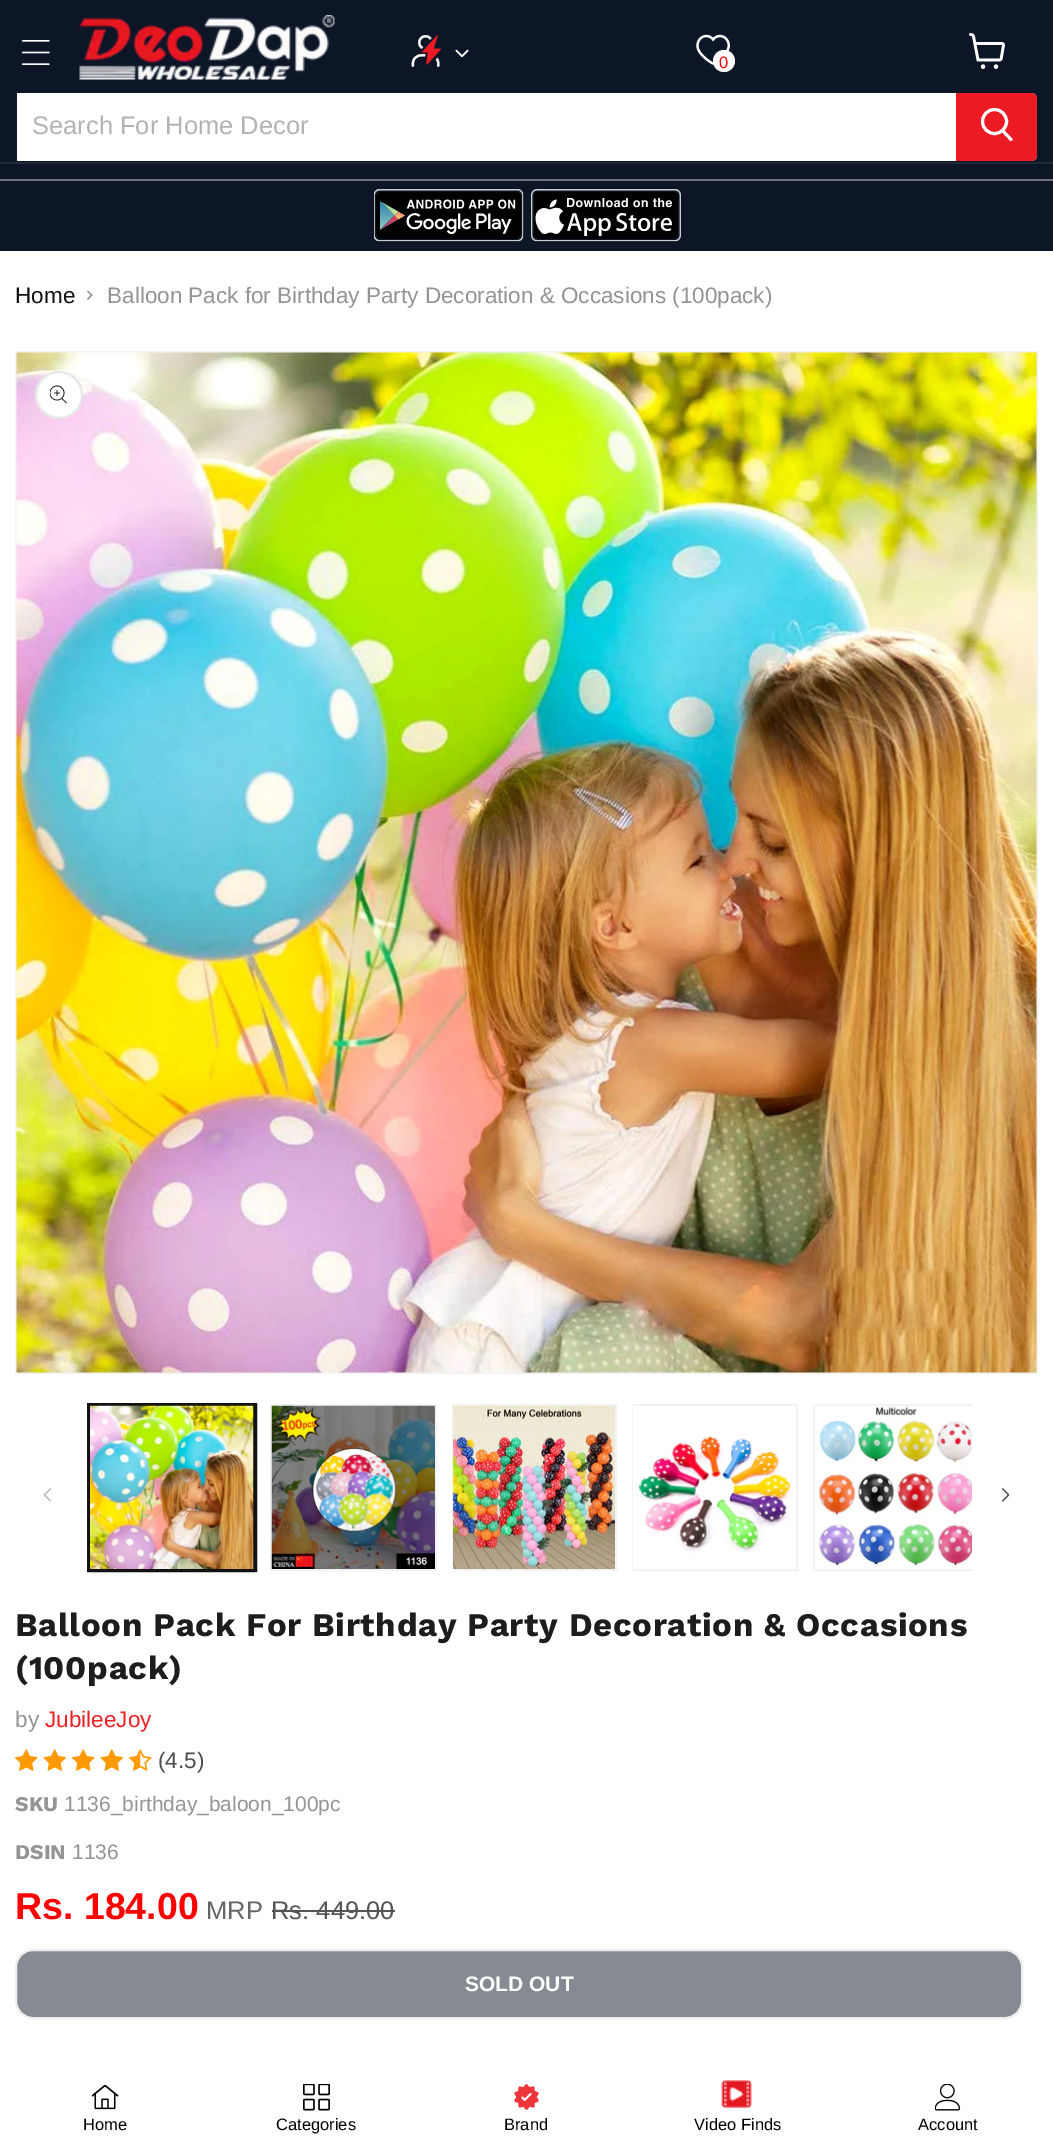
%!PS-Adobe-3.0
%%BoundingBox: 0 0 1053 2151
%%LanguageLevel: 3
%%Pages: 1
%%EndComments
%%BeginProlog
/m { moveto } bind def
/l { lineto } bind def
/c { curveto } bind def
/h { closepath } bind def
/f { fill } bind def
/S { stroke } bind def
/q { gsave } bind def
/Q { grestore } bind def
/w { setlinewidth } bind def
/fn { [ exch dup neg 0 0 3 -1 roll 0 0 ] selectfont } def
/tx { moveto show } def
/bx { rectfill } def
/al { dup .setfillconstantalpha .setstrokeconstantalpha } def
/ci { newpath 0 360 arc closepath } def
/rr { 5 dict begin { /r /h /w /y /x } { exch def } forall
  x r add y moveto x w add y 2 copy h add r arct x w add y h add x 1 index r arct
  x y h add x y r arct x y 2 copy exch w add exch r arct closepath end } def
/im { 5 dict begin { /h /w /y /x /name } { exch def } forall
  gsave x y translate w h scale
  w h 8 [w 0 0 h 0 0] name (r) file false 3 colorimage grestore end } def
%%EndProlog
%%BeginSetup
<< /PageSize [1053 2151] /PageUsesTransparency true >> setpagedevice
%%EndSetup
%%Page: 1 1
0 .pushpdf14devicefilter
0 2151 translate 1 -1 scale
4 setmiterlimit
1 setgray
0 0 1053 2151 bx
0.051 0.086 0.153 setrgbcolor
0 0 1053 251 bx
(image0.raw) 21 40 29 25 im
(image1.raw) 79 15 256 65 im
(image2.raw) 411 35 30 32 im
(image3.raw) 455 49 14 9 im
(image4.raw) 696 34 34 31 im
1 setgray
724 61 11 ci f
/LiberationSans-Regular 16.5 fn
1 0 0 setrgbcolor
(0) 719 68 tx
(image5.raw) 969 33 36 36 im
0.125 0.161 0.22 setrgbcolor
0 162 1053 2 bx
1 setgray
17 93 m 1031 93 l 1034.5 93 1037 95.5 1037 99 c 1037 155 l 1037 158.5 1034.5 161 1031 161 c 17 161 l h f
/LiberationSans-Regular 25.5 fn
0.702 setgray
(Search For Home Decor) 32 134 tx
0.925 0.102 0.137 setrgbcolor
956 93 m 1031 93 l 1034.5 93 1037 95.5 1037 99 c 1037 155 l 1037 158.5 1034.5 161 1031 161 c 956 161 l h f
1 setgray
3 w
1 setlinecap
1011 139.5 m 1003 131 l S
0 setlinecap
994.5 121.5 12 ci S
0.431 0.451 0.49 setrgbcolor
0 179 1053 2 bx
(image6.raw) 374 189 150 53 im
(image7.raw) 531 189 150 53 im
/LiberationSans-Regular 22.5 fn
0.071 setgray
(Home) 15 303 tx
0.58 setgray
88 290.5 m 92.5 295 l 91.5 296 l 87 291.5 l h f
91.5 294 m 92.5 295 l 88 300 l 87 299 l h f
(Balloon Pack for Birthday Party Decoration & Occasions \(100pack\)) 107 303 tx
0.953 setgray
2 w
16 352 1021 1021 rectstroke
(image8.raw) 16 352 1021 1021 im
1 setgray
59 395 24 ci f
0.1 al
0.071 setgray
59 395 23 ci S
1 al
(image9.raw) 50 385 17 19 im
(image10.raw) 43 1488 8 14 im
88 1404 168 167 rectstroke
90 1405 164 165 rectstroke
(image11.raw) 90 1405 164 164 im
0.953 setgray
271 1405 165 165 rectstroke
(image12.raw) 271 1405 164 164 im
453 1405 163 165 rectstroke
(image13.raw) 453 1405 162 164 im
633 1405 164 165 rectstroke
(image14.raw) 633 1406 161 163 im
q
81 1397 891 181 rectclip
814 1405 165 165 rectstroke
Q
(image15.raw) 815 1407 157 160 im
(image16.raw) 1001 1488 9 14 im
/WorkSans-Bold 33 fn
0.114 setgray
15 1636 m 0.65 0 (Balloon Pack For Birthday Party Decoration & Occasions) ashow
15 1679 m 0.65 0 (\(100pack\)) ashow
/LiberationSans-Regular 22.5 fn
0.58 setgray
(by) 15 1727 tx
0.929 0.125 0.141 setrgbcolor
(JubileeJoy) 45 1727 tx
(image17.raw) 15 1749 23 22 im
(image18.raw) 43 1749 23 22 im
(image17.raw) 72 1749 23 22 im
(image18.raw) 100 1749 23 22 im
(image19.raw) 129 1749 23 22 im
0.302 setgray
(\(4.5\)) 158 1768 tx
/WorkSans-Bold 21 fn
0.58 setgray
(SKU) 15 1811 tx
/LiberationSans-Regular 21 fn
(1136_birthday_baloon_100pc) 64 1811 tx
/WorkSans-Bold 21 fn
(DSIN) 15 1859 tx
/LiberationSans-Regular 21 fn
(1136) 72 1859 tx
/LiberationSans-Bold 37.5 fn
1 0 0 setrgbcolor
(Rs. 184.00) 15 1919 tx
/LiberationSans-Regular 25.5 fn
0.4 setgray
(MRP) 206 1919 tx
0.333 setgray
(Rs. 449.00) 271 1919 tx
272 1910 123 2 bx
0.525 0.545 0.576 setrgbcolor
16 1950 1006 68 17 rr q f Q
0.933 setgray
S
/LiberationSans-Bold 21 fn
1 setgray
(SOLD OUT) 465 1991 tx
(image20.raw) 92 2084 27 26 im
/LiberationSans-Regular 16.5 fn
0 setgray
(Home) 83 2130 tx
(image21.raw) 303 2084 27 27 im
(Categories) 276 2130 tx
(image22.raw) 514 2084 25 26 im
(Brand) 504 2130 tx
(image23.raw) 721 2080 31 28 im
(Video Finds) 694 2130 tx
(image24.raw) 935 2084 26 27 im
(Account) 918 2130 tx
.poppdf14devicefilter showpage
%%EOF
